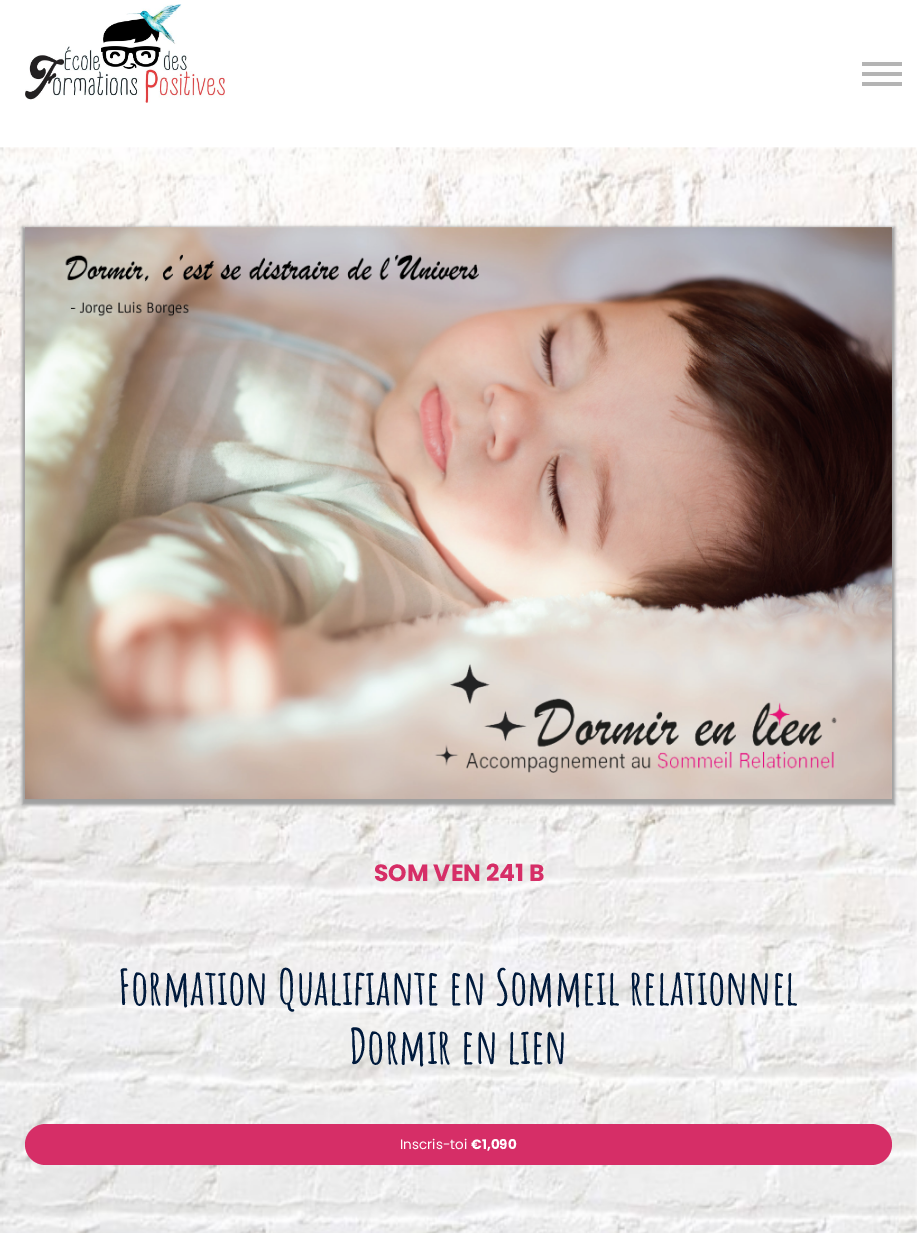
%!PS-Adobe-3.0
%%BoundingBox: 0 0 917 1233
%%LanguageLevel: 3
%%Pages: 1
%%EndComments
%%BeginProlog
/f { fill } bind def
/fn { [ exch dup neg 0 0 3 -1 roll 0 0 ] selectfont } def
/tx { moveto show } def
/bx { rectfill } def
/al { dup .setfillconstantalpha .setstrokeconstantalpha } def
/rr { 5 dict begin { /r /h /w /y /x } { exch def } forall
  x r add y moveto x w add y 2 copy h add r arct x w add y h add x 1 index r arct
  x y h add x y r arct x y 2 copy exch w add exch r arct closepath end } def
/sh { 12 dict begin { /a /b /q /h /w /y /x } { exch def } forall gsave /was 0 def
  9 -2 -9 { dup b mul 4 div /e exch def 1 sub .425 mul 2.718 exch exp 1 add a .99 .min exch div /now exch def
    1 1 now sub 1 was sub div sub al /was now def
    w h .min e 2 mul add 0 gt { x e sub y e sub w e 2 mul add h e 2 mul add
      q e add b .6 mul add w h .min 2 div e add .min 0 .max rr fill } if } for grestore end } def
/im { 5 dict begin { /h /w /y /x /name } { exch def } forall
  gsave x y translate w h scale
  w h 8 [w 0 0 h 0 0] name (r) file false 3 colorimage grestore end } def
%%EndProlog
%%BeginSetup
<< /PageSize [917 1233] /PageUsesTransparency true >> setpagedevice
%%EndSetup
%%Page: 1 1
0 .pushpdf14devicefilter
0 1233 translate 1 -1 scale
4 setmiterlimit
1 setgray
0 0 917 1233 bx
(image0.raw) 25 4 200 99 im
0.706 setgray
862 82 40 4 bx
862 62 40 4 bx
862 72 40 4 bx
(image1.raw) 0 147 917 1086 im
0.62 setgray
22 227 873 578 0 1.5 1 sh
(image2.raw) 25 227 867 573 im
/Poppins-Bold 23.5 fn
0.839 0.18 0.404 setrgbcolor
(SOM VEN 241 B) 374 881 tx
/AmaticSC-Bold 48.6 fn
0 0.102 0.235 setrgbcolor
(Formation Qualifiante en Sommeil relationnel) 118 1005 tx
(Dormir en lien) 349 1064 tx
0.839 0.18 0.404 setrgbcolor
25 1124 867 41 20.5 rr f
/Poppins-Regular 13.5 fn
1 setgray
(Inscris-toi) 400 1149 tx
/Poppins-Bold 13.5 fn
(€1,090) 471 1149 tx
.poppdf14devicefilter showpage
%%EOF
